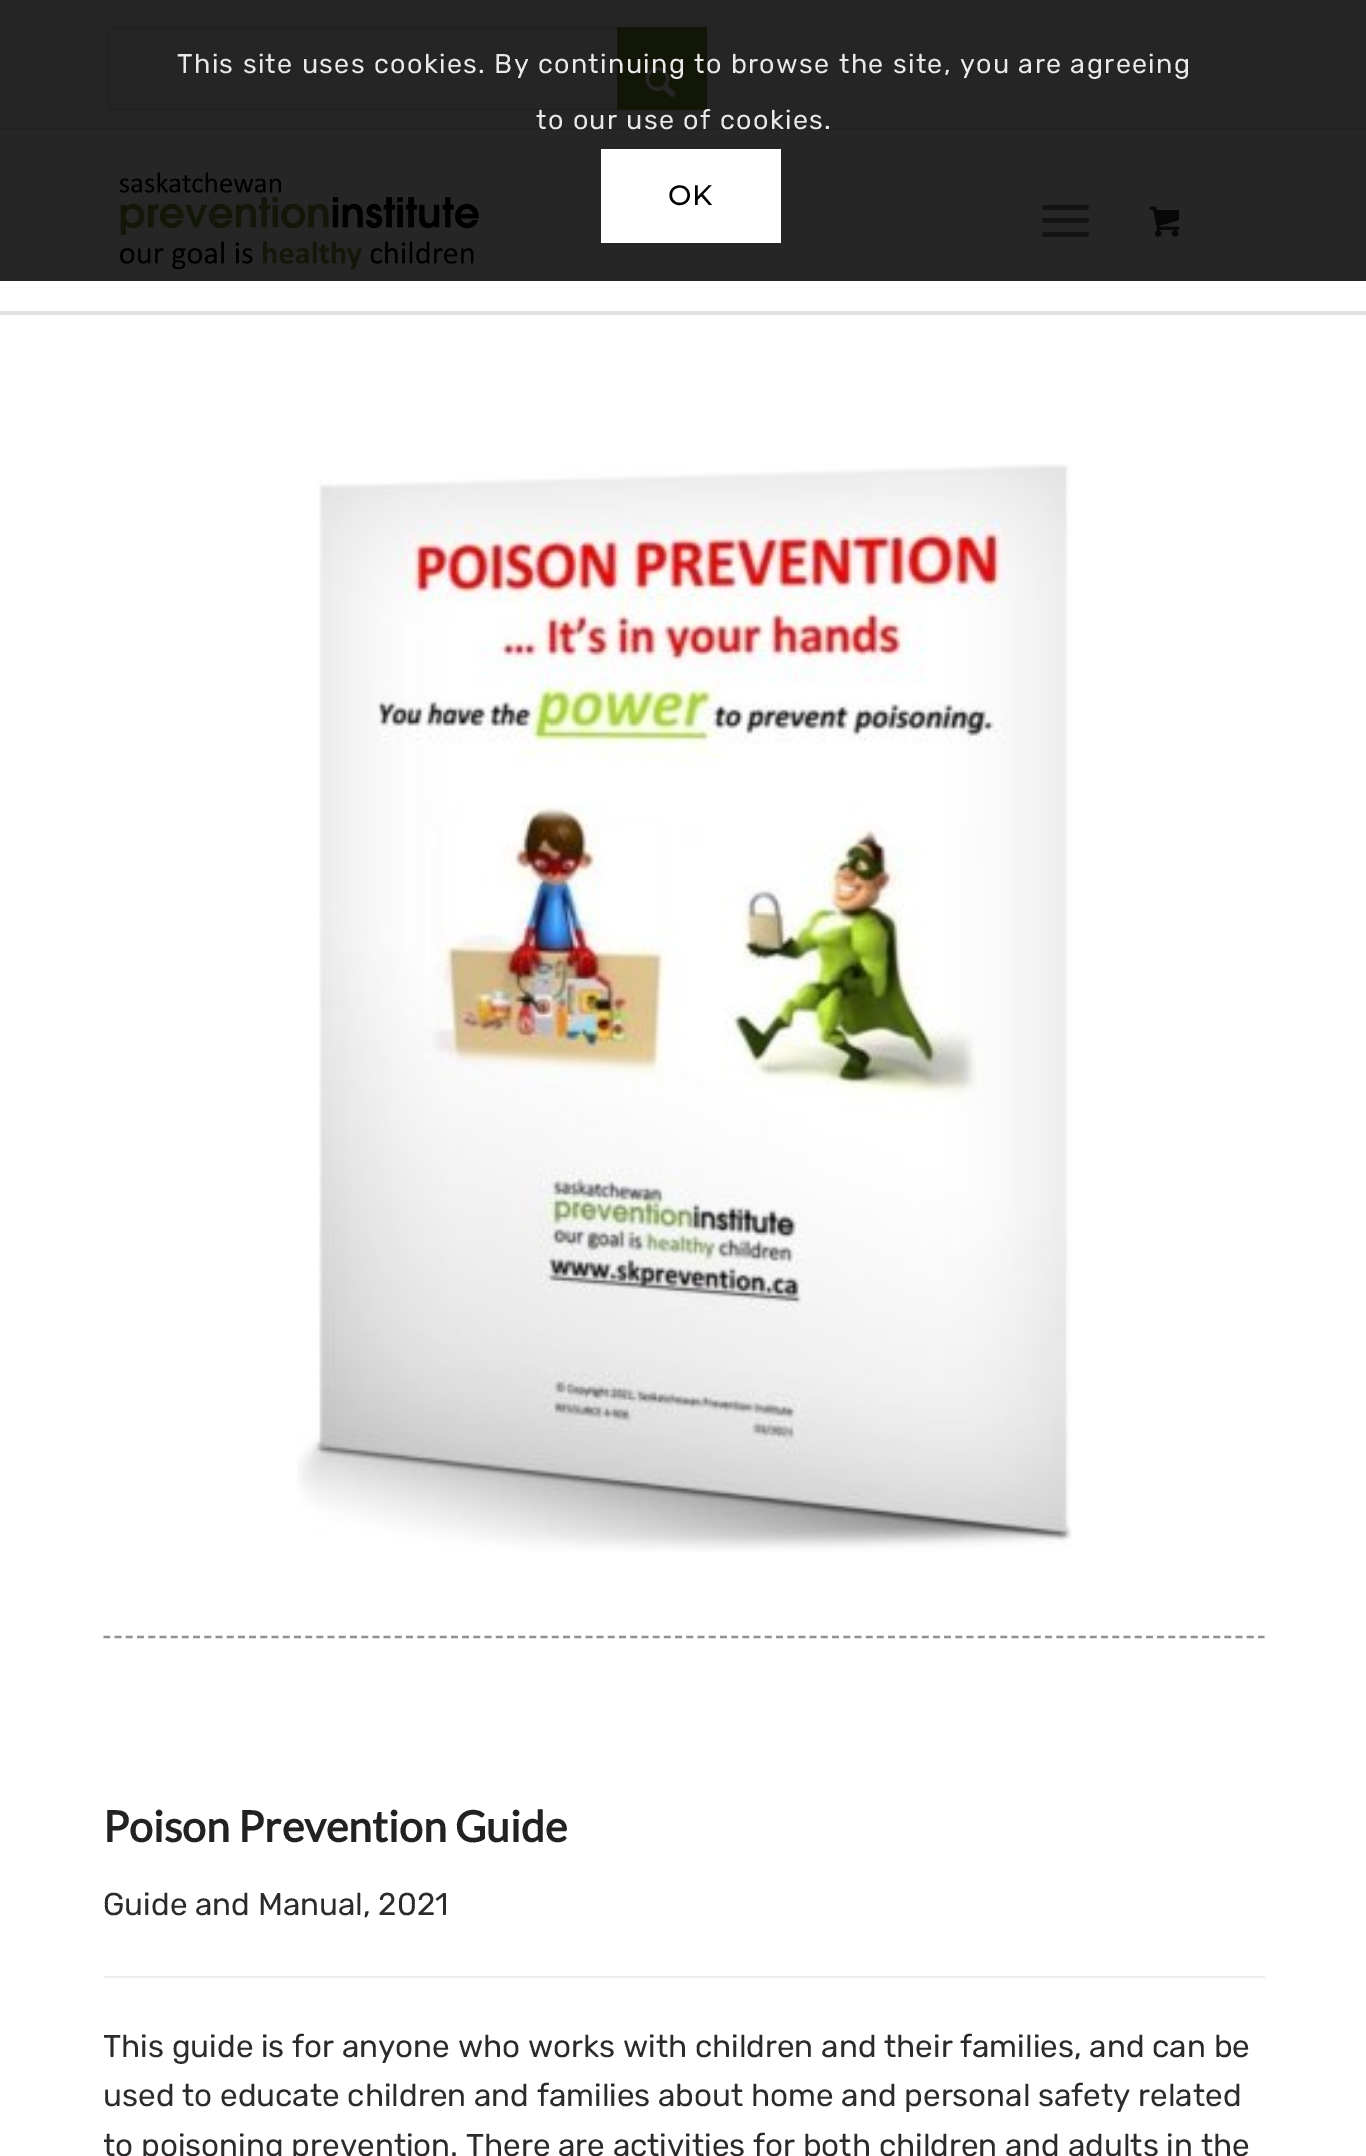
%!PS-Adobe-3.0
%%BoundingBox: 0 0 1366 2156
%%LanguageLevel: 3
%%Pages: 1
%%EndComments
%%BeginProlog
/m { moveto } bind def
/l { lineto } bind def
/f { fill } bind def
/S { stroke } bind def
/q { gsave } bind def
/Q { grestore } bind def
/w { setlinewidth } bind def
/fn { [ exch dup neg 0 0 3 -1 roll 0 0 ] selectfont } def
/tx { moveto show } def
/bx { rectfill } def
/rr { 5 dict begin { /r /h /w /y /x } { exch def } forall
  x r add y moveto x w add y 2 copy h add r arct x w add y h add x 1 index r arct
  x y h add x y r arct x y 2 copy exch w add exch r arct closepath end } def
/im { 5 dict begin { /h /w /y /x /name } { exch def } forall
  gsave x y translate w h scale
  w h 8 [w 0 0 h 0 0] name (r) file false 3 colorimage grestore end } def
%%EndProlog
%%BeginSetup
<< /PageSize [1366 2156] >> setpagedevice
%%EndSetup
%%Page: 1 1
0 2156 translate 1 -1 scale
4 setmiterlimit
1 setgray
0 0 1366 2156 bx
0.145 setgray
0 0 1366 131 bx
0.133 setgray
2 w
109 28 597 81 rectstroke
0.067 0.086 0.027 setrgbcolor
617 27 90 83 bx
(image0.raw) 645 67 31 31 im
/Rubik-Regular 27 fn
0.914 setgray
177 73 m 1.35 0 (This site uses cookies. By continuing to browse the site, you are agreeing) ashow
0.133 setgray
0 128 1366 2 bx
0.914 setgray
536 129 m 1.35 0 (to our use of cookies.) ashow
0.149 setgray
0 131 1366 150 bx
1 setgray
601 149 180 94 bx
/Montserrat-Bold 27 fn
0 setgray
668 205 m 1.35 0 (OK) ashow
(image1.raw) 119 172 360 98 im
0.075 setgray
1042 218 47 5 2.5 rr f
1042 205 47 5 2.5 rr f
1042 232 47 5 2.5 rr f
(image2.raw) 1150 206 29 31 im
0.882 setgray
0 311 1366 4 bx
(image3.raw) 297 464 775 1088 im
0.569 setgray
2.2 w
[6.75 4.46] 0 setdash
103.5 1637 m 1264.5 1637 l S
/Lato-Bold 42.75 fn
0.133 setgray
(Poison Prevention Guide) 103 1842 tx
/Rubik-Regular 31.5 fn
0.169 setgray
(Guide and Manual, 2021) 103 1915 tx
0.933 setgray
104 1976 1161 2 bx
q
104 1773 1161 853 rectclip
0.169 setgray
(This guide is for anyone who works with children and their families, and can be) 103 2057 tx
Q
0.169 setgray
(used to educate children and families about home and personal safety related) 103 2106 tx
q
104 1773 1161 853 rectclip
(to poisoning prevention. There are activities for both children and adults in the) 103 2156 tx
Q
showpage
%%EOF
